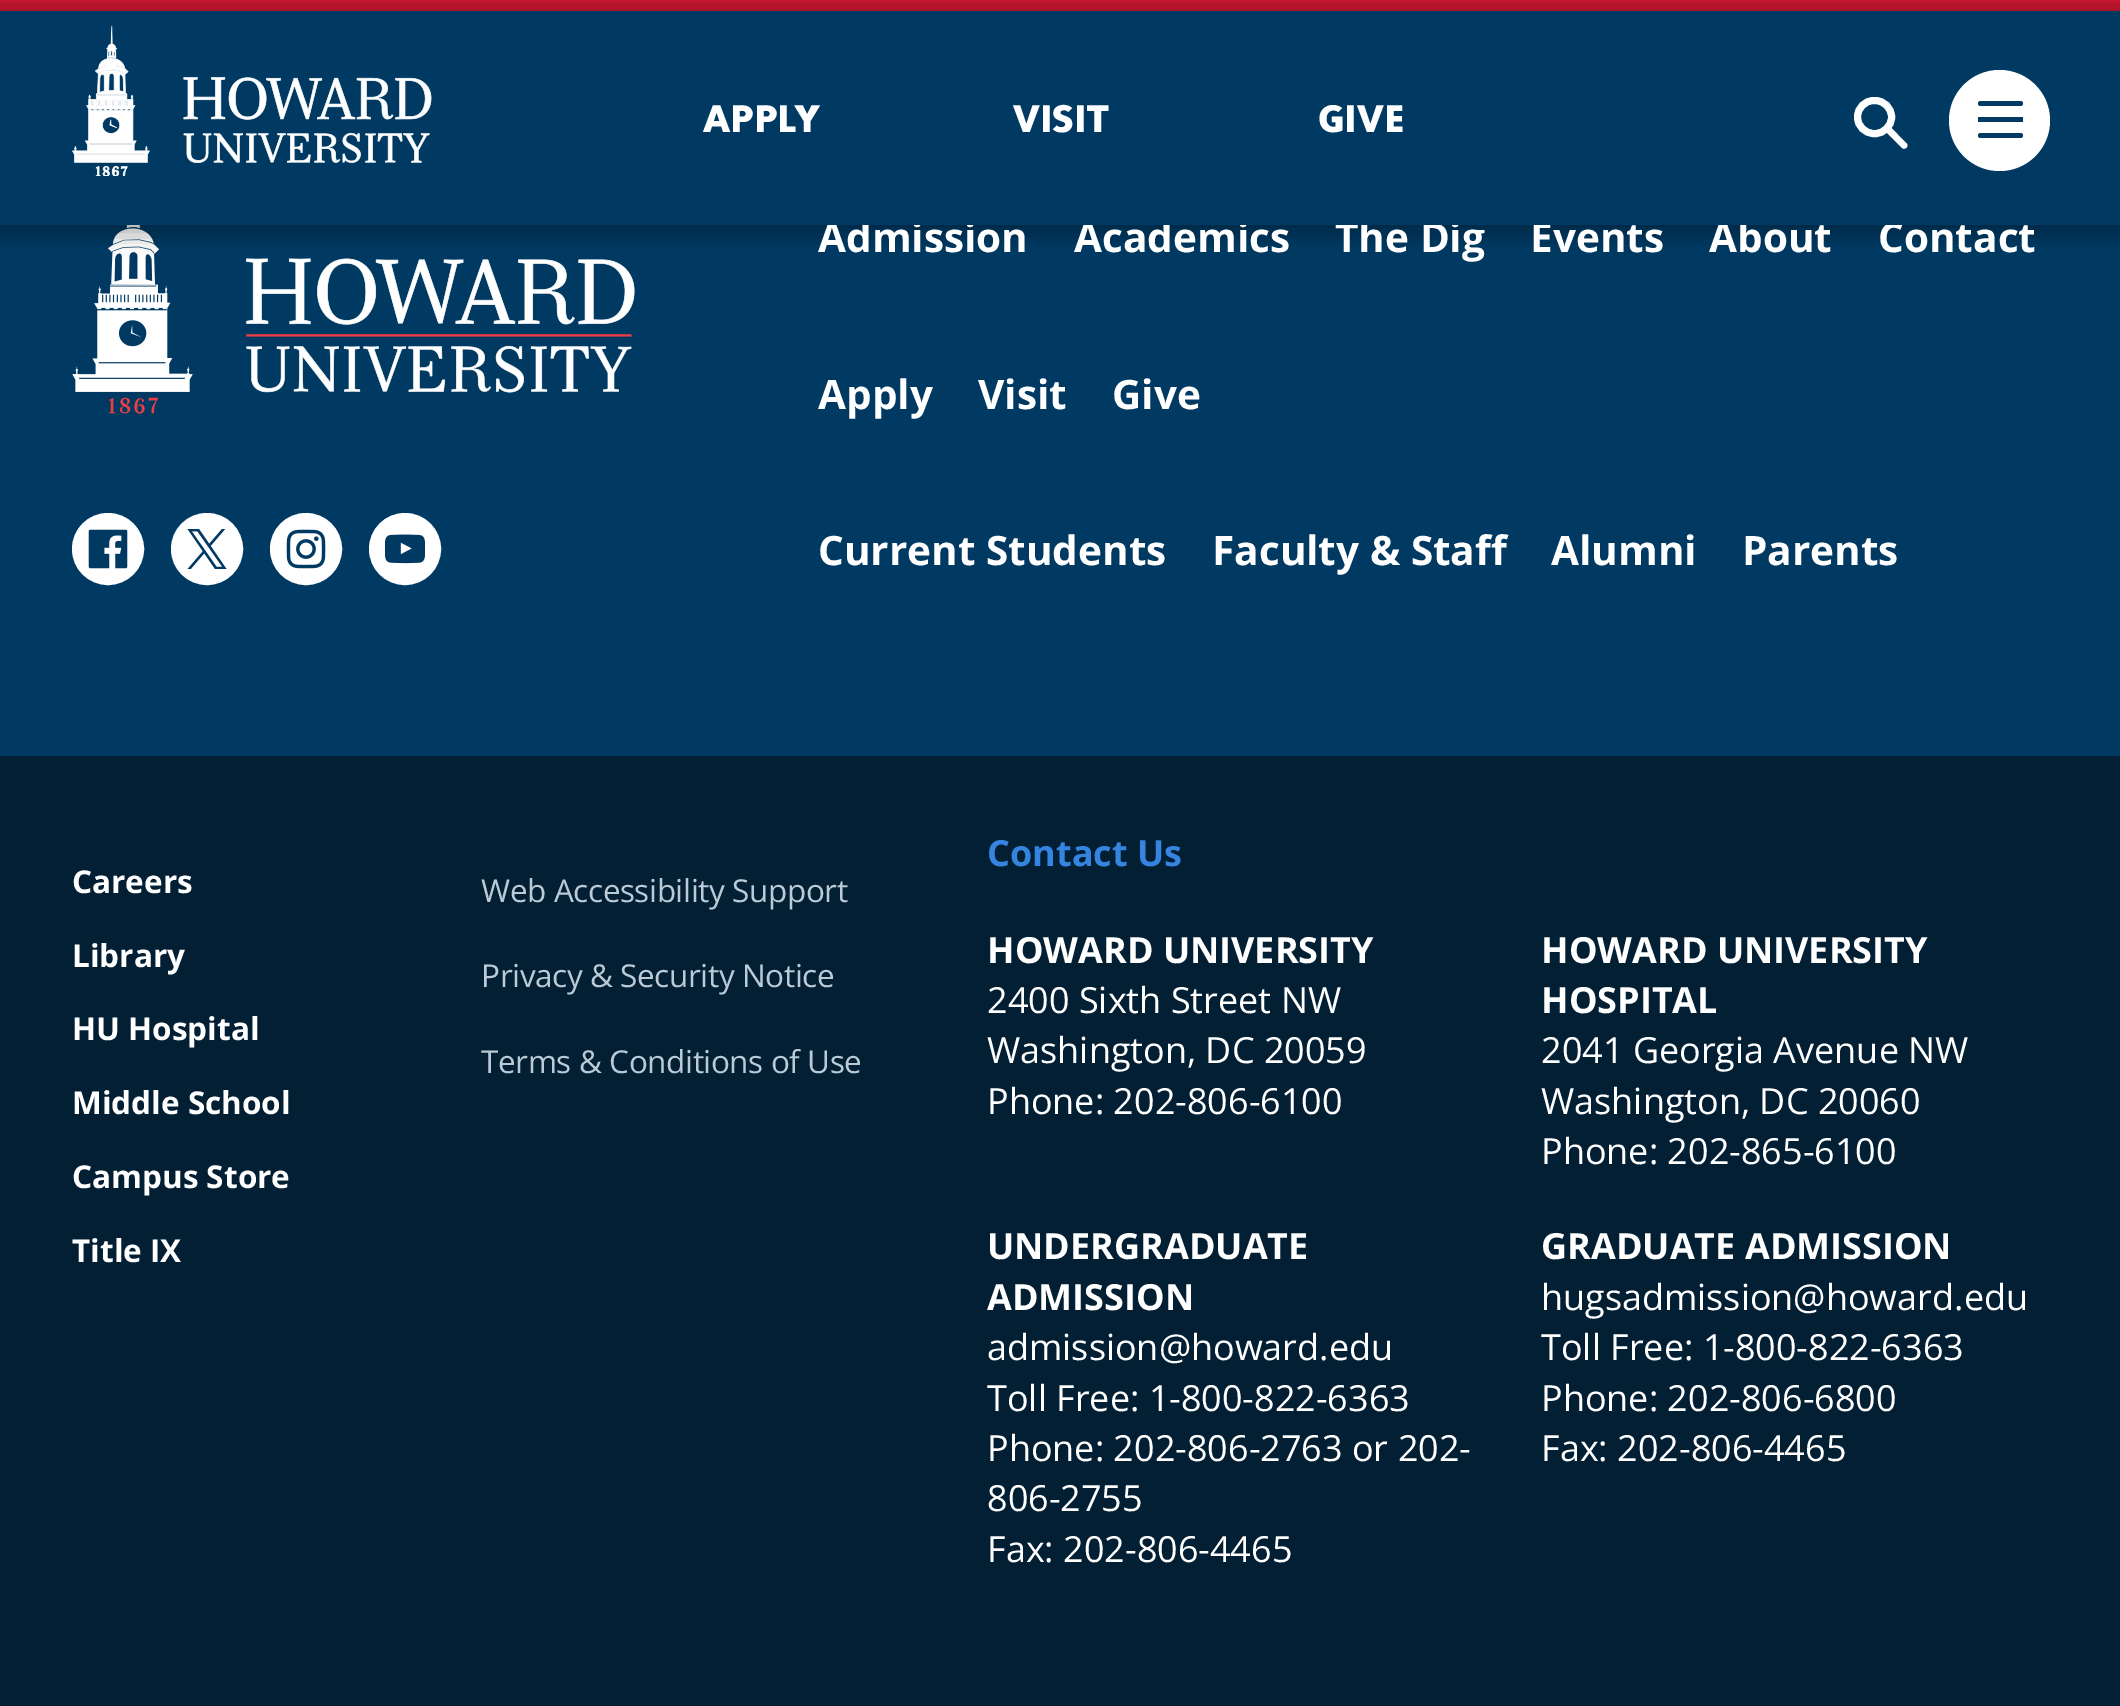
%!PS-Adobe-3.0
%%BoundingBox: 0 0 2120 1706
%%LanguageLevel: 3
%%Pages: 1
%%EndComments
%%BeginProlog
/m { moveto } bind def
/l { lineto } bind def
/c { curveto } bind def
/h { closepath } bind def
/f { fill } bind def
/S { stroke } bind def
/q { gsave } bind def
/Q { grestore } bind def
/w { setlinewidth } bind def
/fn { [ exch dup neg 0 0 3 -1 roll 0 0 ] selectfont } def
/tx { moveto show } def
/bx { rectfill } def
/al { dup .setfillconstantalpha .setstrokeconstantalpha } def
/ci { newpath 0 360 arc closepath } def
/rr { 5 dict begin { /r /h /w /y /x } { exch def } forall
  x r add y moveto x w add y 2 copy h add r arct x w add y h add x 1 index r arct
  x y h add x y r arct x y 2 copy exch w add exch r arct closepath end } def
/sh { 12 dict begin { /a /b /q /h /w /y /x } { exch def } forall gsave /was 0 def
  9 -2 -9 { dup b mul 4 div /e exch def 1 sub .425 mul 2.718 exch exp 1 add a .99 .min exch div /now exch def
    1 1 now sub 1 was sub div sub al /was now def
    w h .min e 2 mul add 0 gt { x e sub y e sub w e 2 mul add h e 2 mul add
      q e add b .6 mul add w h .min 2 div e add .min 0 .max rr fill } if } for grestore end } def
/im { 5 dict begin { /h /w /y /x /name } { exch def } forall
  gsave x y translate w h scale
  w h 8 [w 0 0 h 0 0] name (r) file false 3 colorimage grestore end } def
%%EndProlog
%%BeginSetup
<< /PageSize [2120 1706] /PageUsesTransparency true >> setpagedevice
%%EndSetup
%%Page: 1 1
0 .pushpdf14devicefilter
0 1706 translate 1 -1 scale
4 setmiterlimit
0 0.227 0.388 setrgbcolor
0 0 2120 1706 bx
0.898 0.098 0.216 setrgbcolor
0 0 2120 11 bx
(image1.raw) 72 225 563 189 im
0 setgray
-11 0 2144 236 0 11 0.3 sh
/OpenSans-Bold 40.5 fn
1 setgray
(Admission) 818 252 tx
(Academics) 1074 252 tx
(The Dig) 1335 252 tx
(Events) 1530 252 tx
(About) 1709 252 tx
(Contact) 1878 252 tx
0 0.227 0.388 setrgbcolor
0 11 2120 214 bx
(image0.raw) 72 25 360 151 im
1 setgray
1873 109 m 1906 143 l 1908 144 1908 147 1906 148 c 1905 149 1903 149 1902 148 c 1868 114 l 1867 113 1867 111 1868 109 c 1869 108 1871 108 1873 109 c h f
0 0.227 0.388 setrgbcolor
1857.5 100.5 34 33 16.5 rr q f Q
1 setgray
7 w
S
1999.5 120.5 50.5 ci f
0 0.227 0.388 setrgbcolor
1978 117 45 5 bx
1978 101 45 5 2.5 rr f
1978 133 45 5 2.5 rr f
/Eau-Black 36 fn
1 setgray
(APPLY) 703 132 tx
(VISIT) 1013 132 tx
(GIVE) 1318 132 tx
108 549 35 ci q f Q
2 w
S
(image2.raw) 88 529 40 40 im
207 549 35 ci q f Q
S
(image3.raw) 187 529 40 40 im
306 549 35 ci q f Q
S
(image4.raw) 286 529 40 40 im
405 549 35 ci q f Q
S
(image5.raw) 385 534 40 30 im
/OpenSans-Bold 40.5 fn
(Apply) 818 409 tx
(Visit) 978 409 tx
(Give) 1112 409 tx
(Current Students) 818 565 tx
(Faculty & Staff) 1212 565 tx
(Alumni) 1551 565 tx
(Parents) 1742 565 tx
0.012 0.122 0.2 setrgbcolor
0 756 2120 950 bx
/OpenSans-Bold 31.5 fn
1 setgray
(Careers) 72 893 tx
(Library) 72 967 tx
(HU Hospital) 72 1040 tx
(Middle School) 72 1114 tx
(Campus Store) 72 1188 tx
(Title IX) 72 1262 tx
/OpenSans-Regular 31.5 fn
0.729 0.796 0.843 setrgbcolor
481 902 m -0.4 0 (Web Accessibility Support) ashow
481 987 m -0.4 0 (Privacy & Security Notice) ashow
481 1073 m -0.4 0 (Terms & Conditions of Use) ashow
/OpenSans-Bold 36 fn
0.208 0.522 0.878 setrgbcolor
(Contact Us) 987 866 tx
1 setgray
(HOWARD UNIVERSITY) 987 963 tx
/OpenSans-Regular 36 fn
(2400 Sixth Street NW) 987 1013 tx
(Washington, DC 20059) 987 1063 tx
(Phone: 202-806-6100) 987 1114 tx
/OpenSans-Bold 36 fn
(HOWARD UNIVERSITY) 1541 963 tx
(HOSPITAL) 1541 1013 tx
/OpenSans-Regular 36 fn
(2041 Georgia Avenue NW) 1541 1063 tx
(Washington, DC 20060) 1541 1114 tx
(Phone: 202-865-6100) 1541 1164 tx
/OpenSans-Bold 36 fn
(UNDERGRADUATE) 987 1259 tx
(ADMISSION) 987 1310 tx
/OpenSans-Regular 36 fn
(admission@howard.edu) 987 1360 tx
(Toll Free: 1-800-822-6363) 987 1411 tx
(Phone: 202-806-2763 or 202-) 987 1461 tx
(806-2755) 987 1511 tx
(Fax: 202-806-4465) 987 1562 tx
/OpenSans-Bold 36 fn
(GRADUATE ADMISSION) 1541 1259 tx
/OpenSans-Regular 36 fn
(hugsadmission@howard.edu) 1541 1310 tx
(Toll Free: 1-800-822-6363) 1541 1360 tx
(Phone: 202-806-6800) 1541 1411 tx
(Fax: 202-806-4465) 1541 1461 tx
.poppdf14devicefilter showpage
%%EOF
